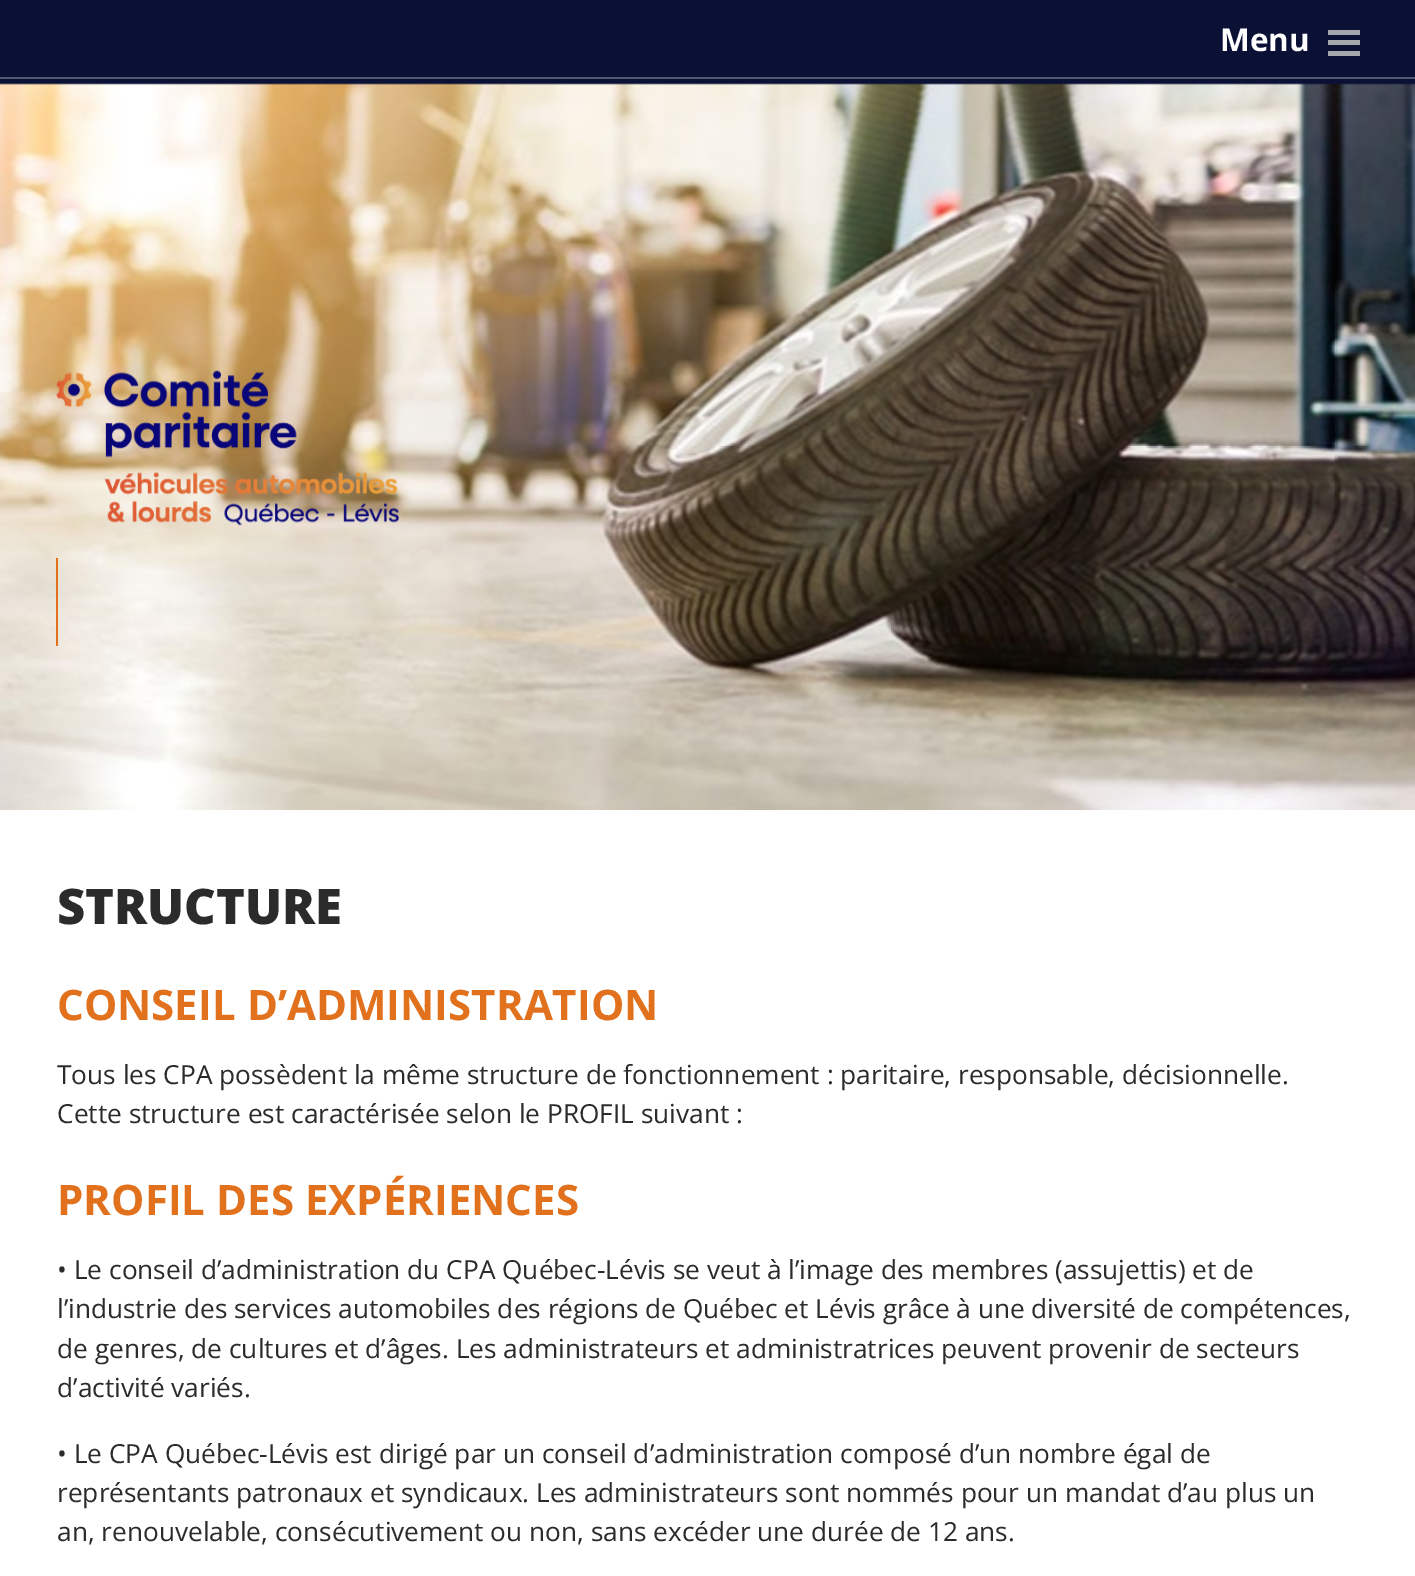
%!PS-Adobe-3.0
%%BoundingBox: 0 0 1415 1576
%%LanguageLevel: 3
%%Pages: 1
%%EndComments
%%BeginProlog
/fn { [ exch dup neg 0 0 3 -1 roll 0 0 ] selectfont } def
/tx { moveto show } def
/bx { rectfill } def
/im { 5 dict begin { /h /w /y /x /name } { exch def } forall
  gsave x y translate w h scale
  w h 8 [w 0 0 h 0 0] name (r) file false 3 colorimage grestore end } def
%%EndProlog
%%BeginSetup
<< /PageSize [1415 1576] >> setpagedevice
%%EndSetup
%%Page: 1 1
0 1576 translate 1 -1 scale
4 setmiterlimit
0.043 0.063 0.208 setrgbcolor
0 0 1415 1576 bx
(image0.raw) 0 83 1415 727 im
0.333 0.345 0.447 setrgbcolor
0 77 1415 2 bx
/OpenSans-Bold 31.5 fn
1 setgray
(Menu) 1220 51 tx
0.647 0.647 0.682 setrgbcolor
1328 30 32 5 bx
1328 40 32 5 bx
1328 51 32 5 bx
(image1.raw) 56 370 343 156 im
0.882 0.443 0.114 setrgbcolor
56 558 2 88 bx
1 setgray
0 810 1415 766 bx
/OpenSans-ExtraBold 49 fn
0.169 setgray
(STRUCTURE) 57 924 tx
/OpenSans-Bold 42 fn
0.882 0.443 0.114 setrgbcolor
(CONSEIL D’ADMINISTRATION) 57 1020 tx
/OpenSans-Regular 26.25 fn
0.169 setgray
(Tous les CPA possèdent la même structure de fonctionnement : paritaire, responsable, décisionnelle.) 57 1084 tx
(Cette structure est caractérisée selon le PROFIL suivant :) 57 1123 tx
/OpenSans-Bold 42 fn
0.882 0.443 0.114 setrgbcolor
(PROFIL DES EXPÉRIENCES) 57 1215 tx
/OpenSans-Regular 26.25 fn
0.169 setgray
(• Le conseil d’administration du CPA Québec-Lévis se veut à l’image des membres \(assujettis\) et de) 57 1279 tx
(l’industrie des services automobiles des régions de Québec et Lévis grâce à une diversité de compétences,) 57 1318 tx
(de genres, de cultures et d’âges. Les administrateurs et administratrices peuvent provenir de secteurs) 57 1358 tx
(d’activité variés.) 57 1397 tx
(• Le CPA Québec-Lévis est dirigé par un conseil d’administration composé d’un nombre égal de) 57 1463 tx
(représentants patronaux et syndicaux. Les administrateurs sont nommés pour un mandat d’au plus un) 57 1502 tx
(an, renouvelable, consécutivement ou non, sans excéder une durée de 12 ans.) 57 1541 tx
showpage
%%EOF
